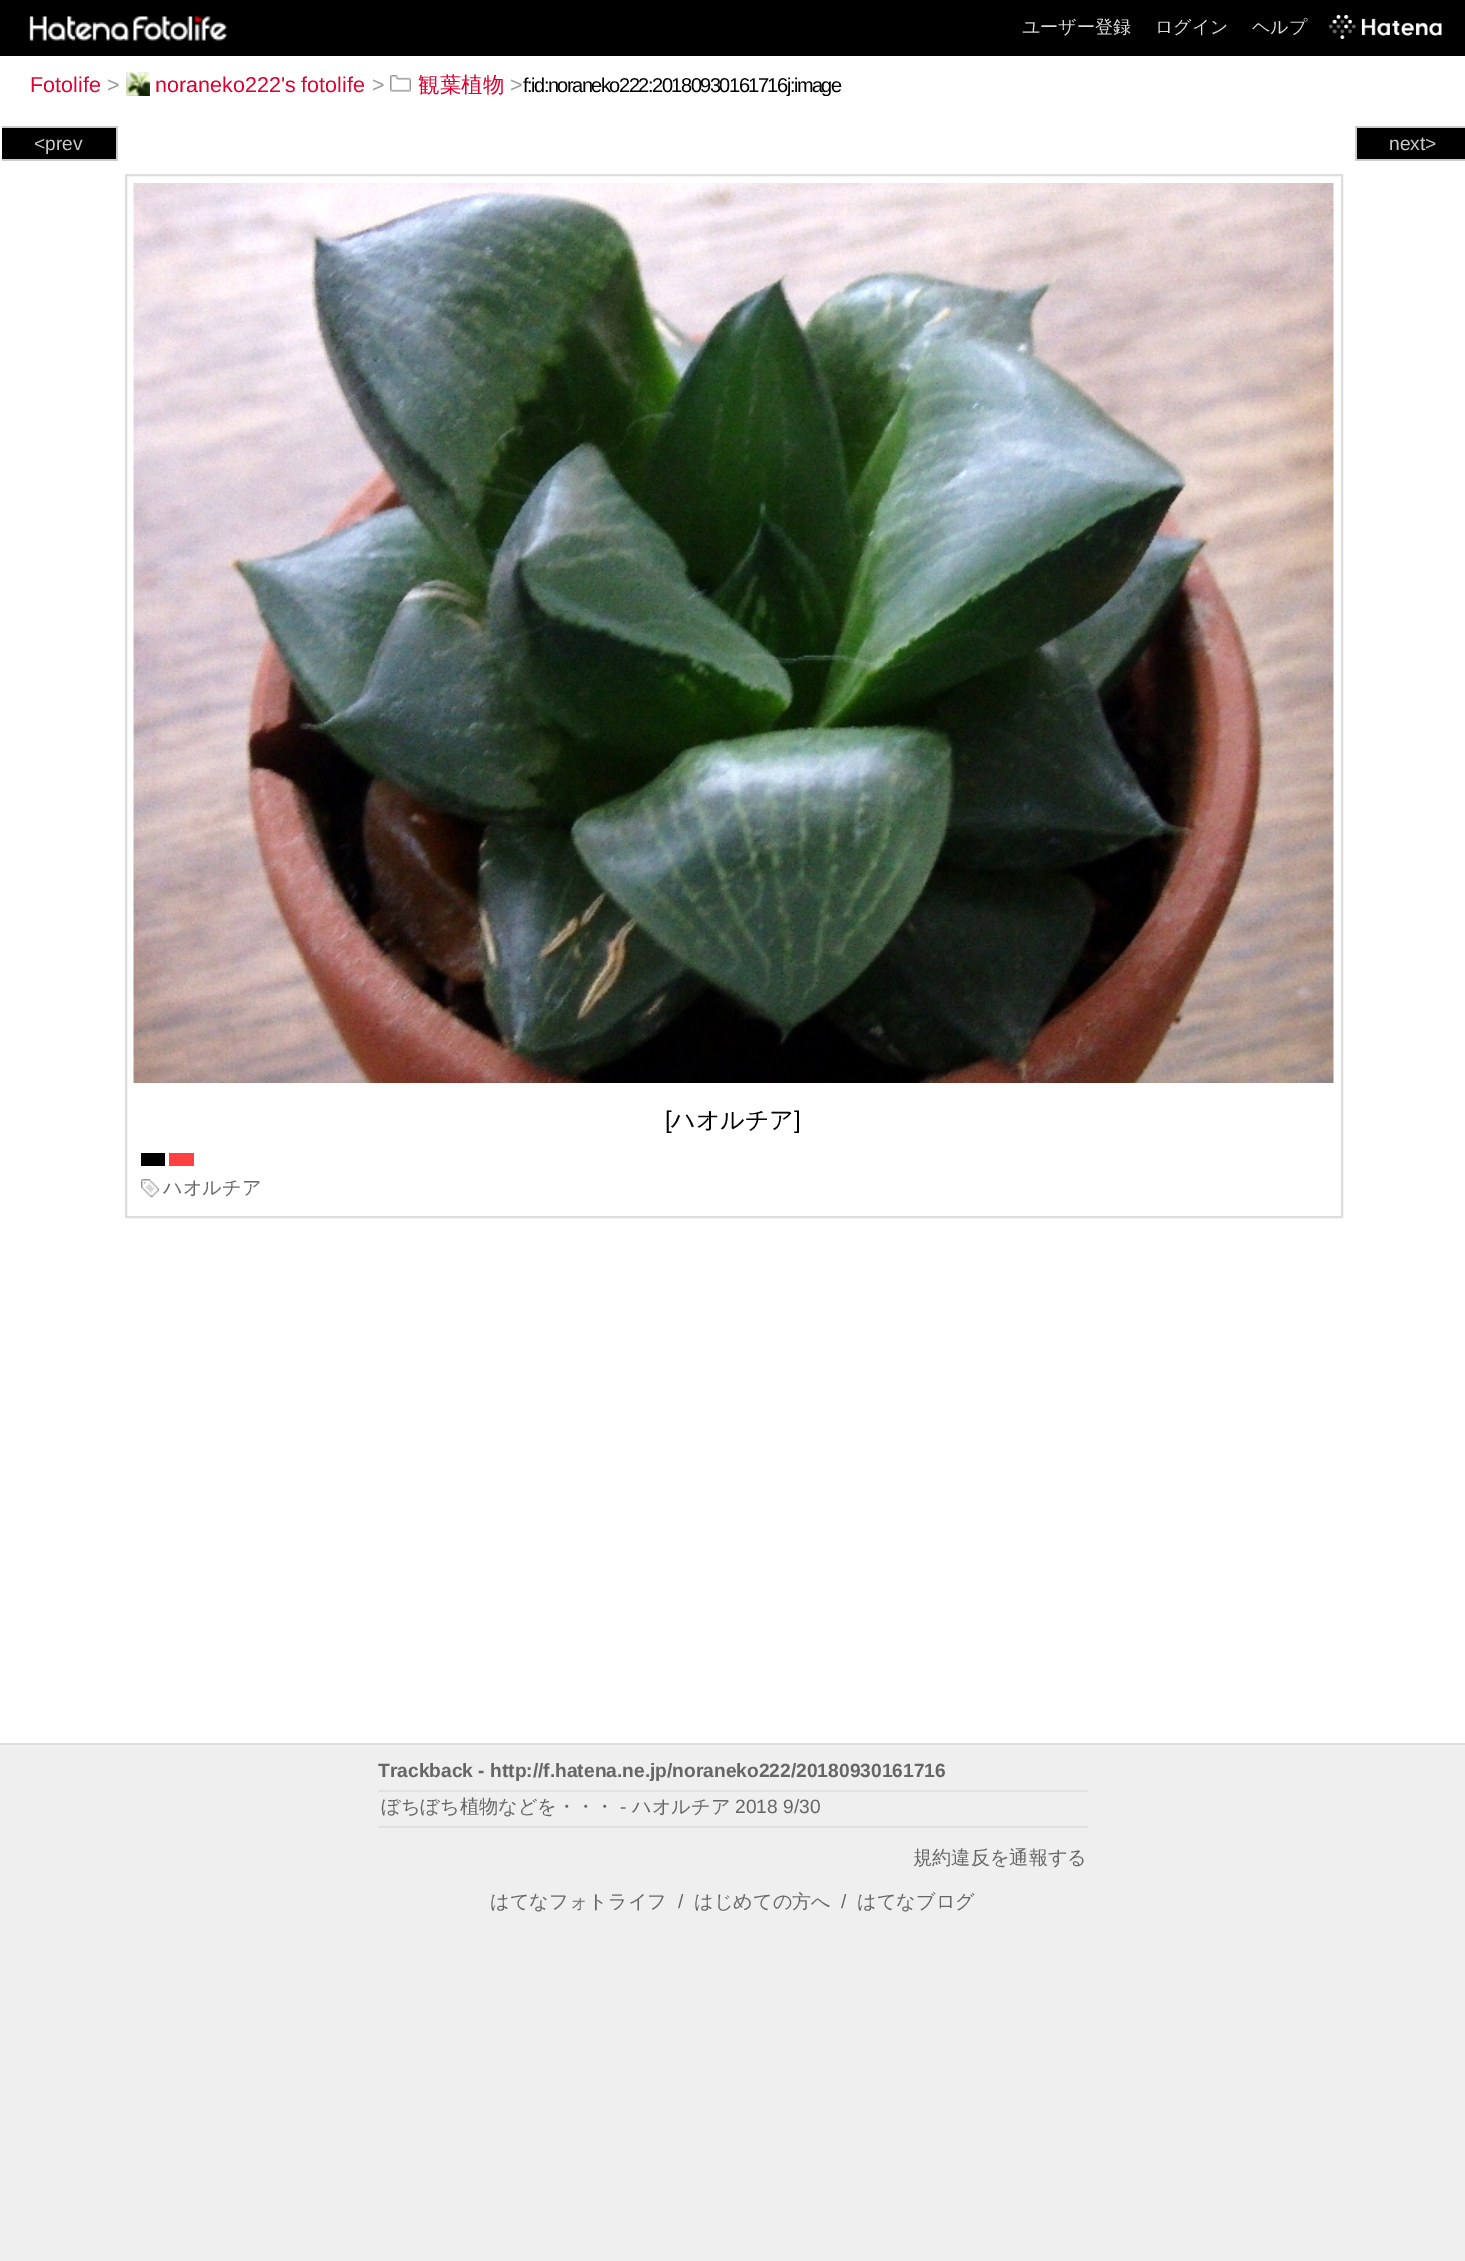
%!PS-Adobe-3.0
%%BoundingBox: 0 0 1465 2261
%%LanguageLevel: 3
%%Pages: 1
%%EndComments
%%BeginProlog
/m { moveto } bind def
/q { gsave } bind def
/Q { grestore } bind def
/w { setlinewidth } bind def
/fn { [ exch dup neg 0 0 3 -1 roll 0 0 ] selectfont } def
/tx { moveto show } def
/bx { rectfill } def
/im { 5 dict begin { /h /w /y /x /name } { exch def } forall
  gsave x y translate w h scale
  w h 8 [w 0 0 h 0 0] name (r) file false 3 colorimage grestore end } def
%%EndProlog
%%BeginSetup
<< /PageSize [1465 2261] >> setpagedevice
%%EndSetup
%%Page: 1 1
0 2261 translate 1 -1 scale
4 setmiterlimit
0.937 setgray
0 0 1465 2261 bx
0 setgray
0 0 1465 56 bx
(image0.raw) 29 16 101 25 im
(image1.raw) 133 16 94 25 im
/WenQuanYiZenHei-Medium 18 fn
0.867 setgray
(ユーザー登録) 1022 33 tx
(ログイン) 1155 33 tx
(ヘルプ) 1252 33 tx
(image2.raw) 1329 15 113 24 im
1 setgray
0 56 1465 1687 bx
/LiberationSans-Regular 21.5 fn
0.871 0 0.184 setrgbcolor
(Fotolife) 30 92 tx
0.6 setgray
(>) 107 92 tx
(image3.raw) 126 72 24 24 im
0.871 0 0.184 setrgbcolor
(noraneko222's fotolife) 155 92 tx
0.6 setgray
(>) 372 92 tx
(image4.raw) 390 75 21 17 im
/WenQuanYiZenHei-Medium 21.5 fn
0.871 0 0.184 setrgbcolor
(観葉植物) 418 92 tx
/LiberationSans-Regular 21.5 fn
0.6 setgray
(>) 510 92 tx
q
522 74 566 22 rectclip
/LiberationSans-Regular 20 fn
0 setgray
523 92 m -1.5 0 (f:id:noraneko222:20180930161716j:image) ashow
Q
0.871 setgray
0 1743 1465 2 bx
0 setgray
2 128 114 31 bx
0.8 setgray
2 126 115 2 bx
116 126 2 35 bx
2 159 115 2 bx
/LiberationSans-Regular 19.2 fn
(<prev) 34 150 tx
0 setgray
1357 128 108 31 bx
0.8 setgray
1355 126 110 2 bx
1355 159 110 2 bx
1355 126 2 35 bx
(next>) 1389 150 tx
0.871 setgray
2 w
126 175 1216 1042 rectstroke
(image5.raw) 133 183 1201 900 im
/LiberationSans-Regular 24 fn
0 setgray
([) 665 1128 tx
/WenQuanYiZenHei-Medium 24 fn
(ハオルチア) 671 1128 tx
/LiberationSans-Regular 24 fn
(]) 794 1128 tx
141 1153 24 13 bx
1 0.251 0.251 setrgbcolor
169 1153 25 13 bx
(image6.raw) 141 1179 18 18 im
/WenQuanYiZenHei-Medium 19.2 fn
0.4 setgray
(ハオルチア) 163 1194 tx
/LiberationSans-Bold 19.2 fn
(Trackback - http://f.hatena.ne.jp/noraneko222/20180930161716) 378 1777 tx
0.882 setgray
378 1790 710 2 bx
378 1826 710 2 bx
/WenQuanYiZenHei-Medium 19.2 fn
0.4 setgray
(ぼちぼち植物などを・・・) 381 1813 tx
/LiberationSans-Regular 19.2 fn
(-) 620 1813 tx
/WenQuanYiZenHei-Medium 19.2 fn
(ハオルチア) 632 1813 tx
/LiberationSans-Regular 19.2 fn
(2018 9/30) 735 1813 tx
/WenQuanYiZenHei-Medium 19.2 fn
(規約違反を通報する) 913 1864 tx
(はてなフォトライフ) 490 1908 tx
/LiberationSans-Regular 19.2 fn
(/) 678 1908 tx
/WenQuanYiZenHei-Medium 19.2 fn
(はじめての方へ) 694 1908 tx
/LiberationSans-Regular 19.2 fn
(/) 841 1908 tx
/WenQuanYiZenHei-Medium 19.2 fn
(はてなブログ) 857 1908 tx
showpage
%%EOF
